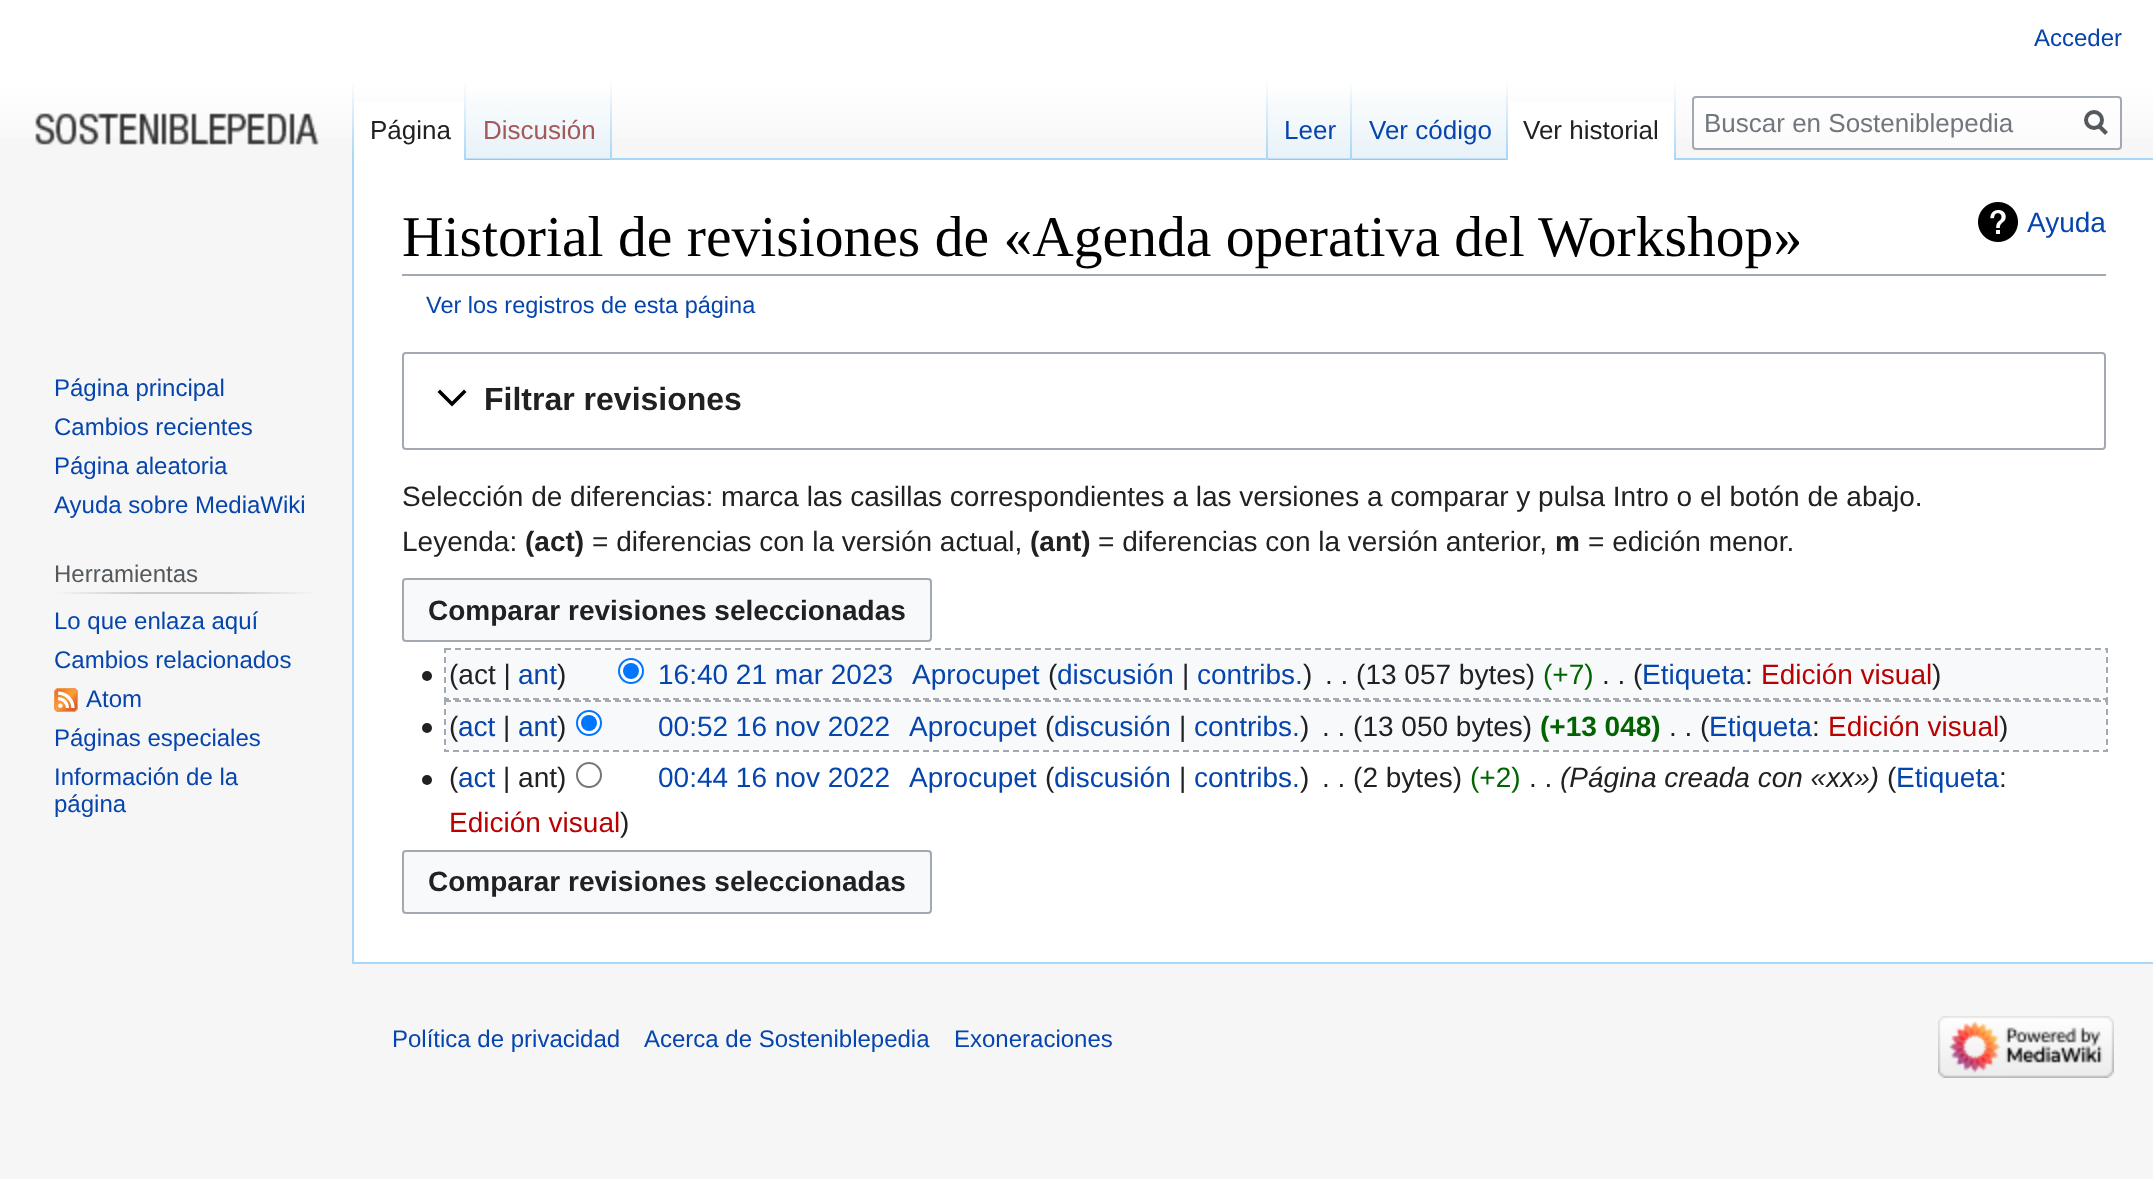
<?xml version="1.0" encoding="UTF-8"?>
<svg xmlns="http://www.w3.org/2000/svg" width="2153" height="1179">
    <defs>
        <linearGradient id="g1" gradientUnits="userSpaceOnUse" x1="1077" y1="0" x2="1077" y2="160"><stop offset="0.5" stop-color="#FFFFFF"/><stop offset="1" stop-color="#F6F6F6"/></linearGradient>
        <linearGradient id="g2" gradientUnits="userSpaceOnUse" x1="353" y1="80" x2="353" y2="160"><stop offset="0" stop-color="#A7D7F9" stop-opacity="0"/><stop offset="1" stop-color="#A7D7F9"/></linearGradient>
        <linearGradient id="g3" gradientUnits="userSpaceOnUse" x1="465" y1="80" x2="465" y2="160"><stop offset="0" stop-color="#FFFFFF"/><stop offset="1" stop-color="#A7D7F9"/></linearGradient>
        <linearGradient id="g4" gradientUnits="userSpaceOnUse" x1="539" y1="160" x2="539" y2="80"><stop offset="0" stop-color="#77C1F6"/><stop offset="0.03" stop-color="#E8F2F8"/><stop offset="1" stop-color="#FFFFFF"/></linearGradient>
        <linearGradient id="g5" gradientUnits="userSpaceOnUse" x1="611" y1="80" x2="611" y2="160"><stop offset="0" stop-color="#A7D7F9" stop-opacity="0"/><stop offset="1" stop-color="#A7D7F9"/></linearGradient>
        <linearGradient id="g6" gradientUnits="userSpaceOnUse" x1="1267" y1="80" x2="1267" y2="160"><stop offset="0" stop-color="#A7D7F9" stop-opacity="0"/><stop offset="1" stop-color="#A7D7F9"/></linearGradient>
        <linearGradient id="g7" gradientUnits="userSpaceOnUse" x1="1310" y1="160" x2="1310" y2="80"><stop offset="0" stop-color="#77C1F6"/><stop offset="0.03" stop-color="#E8F2F8"/><stop offset="1" stop-color="#FFFFFF"/></linearGradient>
        <linearGradient id="g8" gradientUnits="userSpaceOnUse" x1="1351" y1="80" x2="1351" y2="160"><stop offset="0" stop-color="#A7D7F9" stop-opacity="0"/><stop offset="1" stop-color="#A7D7F9"/></linearGradient>
        <linearGradient id="g9" gradientUnits="userSpaceOnUse" x1="1430" y1="160" x2="1430" y2="80"><stop offset="0" stop-color="#77C1F6"/><stop offset="0.03" stop-color="#E8F2F8"/><stop offset="1" stop-color="#FFFFFF"/></linearGradient>
        <linearGradient id="g10" gradientUnits="userSpaceOnUse" x1="1507" y1="80" x2="1507" y2="160"><stop offset="0" stop-color="#A7D7F9" stop-opacity="0"/><stop offset="1" stop-color="#A7D7F9"/></linearGradient>
        <linearGradient id="g11" gradientUnits="userSpaceOnUse" x1="1675" y1="80" x2="1675" y2="160"><stop offset="0" stop-color="#FFFFFF"/><stop offset="1" stop-color="#A7D7F9"/></linearGradient>
        <linearGradient id="g12" gradientUnits="userSpaceOnUse" x1="54" y1="593" x2="316" y2="593"><stop offset="0" stop-color="#F6F6F6"/><stop offset="0.33" stop-color="#C8CCD1"/><stop offset="0.66" stop-color="#C8CCD1"/><stop offset="1" stop-color="#F6F6F6"/></linearGradient>
    </defs>
    <rect width="100%" height="100%" fill="#F6F6F6"/>
    <rect x="0" y="0" width="2153" height="138" fill="url(#g1)"/>
    <text x="2034" y="46" font-family="Liberation Sans" font-size="24" fill="#0645AD">Acceder</text>
    <rect x="352" y="962" width="1801" height="2" fill="#A7D7F9"/>
    <rect x="352" y="158" width="2" height="806" fill="#A7D7F9"/>
    <rect x="352" y="80" width="2" height="80" fill="url(#g2)"/>
    <rect x="354" y="102" width="110" height="58" fill="#FFFFFF"/>
    <rect x="464" y="80" width="2" height="80" fill="url(#g3)"/>
    <text x="370" y="139" font-family="Liberation Sans" font-size="26" fill="#202122">Página</text>
    <rect x="466" y="92" width="146" height="68" fill="url(#g4)"/>
    <rect x="610" y="80" width="2" height="80" fill="url(#g5)"/>
    <text x="483" y="139" font-family="Liberation Sans" font-size="26" fill="#A55858">Discusión</text>
    <rect x="612" y="158" width="1541" height="2" fill="#A7D7F9"/>
    <rect x="1266" y="80" width="2" height="80" fill="url(#g6)"/>
    <rect x="1268" y="92" width="84" height="68" fill="url(#g7)"/>
    <rect x="1350" y="80" width="2" height="80" fill="url(#g8)"/>
    <text x="1284" y="139" font-family="Liberation Sans" font-size="26" fill="#0645AD">Leer</text>
    <rect x="1352" y="92" width="156" height="68" fill="url(#g9)"/>
    <rect x="1506" y="80" width="2" height="80" fill="url(#g10)"/>
    <text x="1369" y="139" font-family="Liberation Sans" font-size="26" fill="#0645AD">Ver código</text>
    <rect x="1508" y="102" width="166" height="58" fill="#FFFFFF"/>
    <rect x="1674" y="80" width="2" height="80" fill="url(#g11)"/>
    <text x="1523" y="139" font-family="Liberation Sans" font-size="26" fill="#202122">Ver historial</text>
    <rect x="1693" y="97" width="428" height="52" rx="3" fill="#FFFFFF" fill-opacity="0.5" stroke="#A2A9B1" stroke-width="2"/>
    <text x="1704" y="132" font-family="Liberation Sans" font-size="26" fill="#72777D">Buscar en Sosteniblepedia</text>
    <path d="M 2106.5 133.5 L 2098.5 125.5" fill="none" stroke="#54595D" stroke-width="4"/>
    <circle cx="2094" cy="120" r="8" fill="none" stroke="#54595D" stroke-width="4"/>
    <image x="35" y="113" width="284" height="32" href="img_01.png"/>
    <text font-family="Liberation Sans" font-size="24" fill="#0645AD">
        <tspan x="54" y="396">Página principal</tspan>
        <tspan x="54" y="435">Cambios recientes</tspan>
        <tspan x="54" y="474">Página aleatoria</tspan>
        <tspan x="54" y="513">Ayuda sobre MediaWiki</tspan>
    </text>
    <rect x="54" y="592" width="262" height="2" fill="url(#g12)"/>
    <text x="54" y="582" font-family="Liberation Sans" font-size="24" fill="#54595D">Herramientas</text>
    <text font-family="Liberation Sans" font-size="24" fill="#0645AD">
        <tspan x="54" y="629">Lo que enlaza aquí</tspan>
        <tspan x="54" y="668">Cambios relacionados</tspan>
    </text>
    <image x="54" y="688" width="24" height="24" href="img_02.png"/>
    <text x="86" y="707" font-family="Liberation Sans" font-size="24" fill="#0645AD">Atom</text>
    <text font-family="Liberation Sans" font-size="24" fill="#0645AD">
        <tspan x="54" y="746">Páginas especiales</tspan>
        <tspan x="54" y="785">Información de la</tspan>
        <tspan x="54" y="812">página</tspan>
    </text>
    <rect x="354" y="160" width="1799" height="802" fill="#FFFFFF"/>
    <rect x="402" y="274" width="1704" height="2" fill="#A2A9B1"/>
    <text x="402" y="256" font-family="Liberation Serif" font-size="57.6" fill="#000000">Historial de revisiones de «Agenda operativa del Workshop»</text>
    <image x="1978" y="202" width="40" height="40" href="img_03.png"/>
    <text x="2027" y="232" font-family="Liberation Sans" font-size="28" fill="#0645AD">Ayuda</text>
    <text x="426" y="313" font-family="Liberation Sans" font-size="23.5" fill="#0645AD">Ver los registros de esta página</text>
    <rect x="403" y="353" width="1702" height="96" rx="3" fill="none" stroke="#A2A9B1" stroke-width="2"/>
    <path d="M 464 389.5 L 452 401.5 L 440 389.5 L 437.5 392 L 452 406.5 L 466.5 392 Z" fill="#000000"/>
    <text x="484" y="410" font-family="Liberation Sans" font-size="32" font-weight="700" fill="#202122">Filtrar revisiones</text>
    <text font-family="Liberation Sans" font-size="28" fill="#202122">
        <tspan x="402" y="506">Selección de diferencias: marca las casillas correspondientes a las versiones a comparar y pulsa Intro o el botón de abajo.</tspan>
        <tspan x="402" y="551">Leyenda:</tspan>
    </text>
    <text x="525" y="551" font-family="Liberation Sans" font-size="28" font-weight="700" fill="#202122">(act)</text>
    <text x="592" y="551" font-family="Liberation Sans" font-size="28" fill="#202122">= diferencias con la versión actual,</text>
    <text x="1030" y="551" font-family="Liberation Sans" font-size="28" font-weight="700" fill="#202122">(ant)</text>
    <text x="1098" y="551" font-family="Liberation Sans" font-size="28" fill="#202122">= diferencias con la versión anterior,</text>
    <text x="1555" y="551" font-family="Liberation Sans" font-size="28" font-weight="700" fill="#202122">m</text>
    <text x="1588" y="551" font-family="Liberation Sans" font-size="28" fill="#202122">= edición menor.</text>
    <rect x="403" y="579" width="528" height="62" rx="3" fill="#F8F9FA" stroke="#A2A9B1" stroke-width="2"/>
    <text x="428" y="620" font-family="Liberation Sans" font-size="28" font-weight="700" fill="#202122">Comparar revisiones seleccionadas</text>
    <rect x="446" y="650" width="1660" height="48" fill="#F8F9FA"/>
    <image x="422" y="671" width="10" height="10" href="img_04.png"/>
    <text x="449" y="684" font-family="Liberation Sans" font-size="28" fill="#202122">(act |</text>
    <text x="518" y="684" font-family="Liberation Sans" font-size="28" fill="#0645AD">ant</text>
    <text x="557" y="684" font-family="Liberation Sans" font-size="28" fill="#202122">)</text>
    <circle cx="631" cy="671" r="12" fill="#FFFFFF" stroke="#0075FF" stroke-width="2"/>
    <circle cx="631" cy="671" r="8" fill="#0075FF"/>
    <text x="658" y="684" font-family="Liberation Sans" font-size="28" fill="#0645AD">16:40 21 mar 2023</text>
    <text x="912" y="684" font-family="Liberation Sans" font-size="28" fill="#0645AD">Aprocupet</text>
    <text x="1048" y="684" font-family="Liberation Sans" font-size="28" fill="#202122">(</text>
    <text x="1057" y="684" font-family="Liberation Sans" font-size="28" fill="#0645AD">discusión</text>
    <text x="1182" y="684" font-family="Liberation Sans" font-size="28" fill="#202122">|</text>
    <text x="1197" y="684" font-family="Liberation Sans" font-size="28" fill="#0645AD">contribs.</text>
    <text x="1303" y="684" font-family="Liberation Sans" font-size="28" fill="#202122">)</text>
    <text x="1325" y="684" font-family="Liberation Sans" font-size="28" fill="#202122">. . (13 057 bytes)</text>
    <text x="1543" y="684" font-family="Liberation Sans" font-size="28" fill="#006400">(+7)</text>
    <text x="1602" y="684" font-family="Liberation Sans" font-size="28" fill="#202122">. . (</text>
    <text x="1642" y="684" font-family="Liberation Sans" font-size="28" fill="#0645AD">Etiqueta</text>
    <text x="1745" y="684" font-family="Liberation Sans" font-size="28" fill="#202122">:</text>
    <text x="1761" y="684" font-family="Liberation Sans" font-size="28" fill="#BA0000">Edición visual</text>
    <text x="1932" y="684" font-family="Liberation Sans" font-size="28" fill="#202122">)</text>
    <path d="M 445 649 H 2107 V 699 H 445 Z" fill="none" stroke="#A2A9B1" stroke-width="2" stroke-dasharray="6 4"/>
    <rect x="446" y="702" width="1660" height="48" fill="#F8F9FA"/>
    <image x="422" y="723" width="10" height="10" href="img_04.png"/>
    <text x="449" y="736" font-family="Liberation Sans" font-size="28" fill="#202122">(</text>
    <text x="458" y="736" font-family="Liberation Sans" font-size="28" fill="#0645AD">act</text>
    <text x="503" y="736" font-family="Liberation Sans" font-size="28" fill="#202122">|</text>
    <text x="518" y="736" font-family="Liberation Sans" font-size="28" fill="#0645AD">ant</text>
    <text x="557" y="736" font-family="Liberation Sans" font-size="28" fill="#202122">)</text>
    <circle cx="589" cy="723" r="12" fill="#FFFFFF" stroke="#0075FF" stroke-width="2"/>
    <circle cx="589" cy="723" r="8" fill="#0075FF"/>
    <text x="658" y="736" font-family="Liberation Sans" font-size="28" fill="#0645AD">00:52 16 nov 2022</text>
    <text x="909" y="736" font-family="Liberation Sans" font-size="28" fill="#0645AD">Aprocupet</text>
    <text x="1045" y="736" font-family="Liberation Sans" font-size="28" fill="#202122">(</text>
    <text x="1054" y="736" font-family="Liberation Sans" font-size="28" fill="#0645AD">discusión</text>
    <text x="1179" y="736" font-family="Liberation Sans" font-size="28" fill="#202122">|</text>
    <text x="1194" y="736" font-family="Liberation Sans" font-size="28" fill="#0645AD">contribs.</text>
    <text x="1300" y="736" font-family="Liberation Sans" font-size="28" fill="#202122">)</text>
    <text x="1322" y="736" font-family="Liberation Sans" font-size="28" fill="#202122">. . (13 050 bytes)</text>
    <text x="1540" y="736" font-family="Liberation Sans" font-size="28" font-weight="700" fill="#006400">(+13 048)</text>
    <text x="1669" y="736" font-family="Liberation Sans" font-size="28" fill="#202122">. . (</text>
    <text x="1709" y="736" font-family="Liberation Sans" font-size="28" fill="#0645AD">Etiqueta</text>
    <text x="1812" y="736" font-family="Liberation Sans" font-size="28" fill="#202122">:</text>
    <text x="1828" y="736" font-family="Liberation Sans" font-size="28" fill="#BA0000">Edición visual</text>
    <text x="1999" y="736" font-family="Liberation Sans" font-size="28" fill="#202122">)</text>
    <path d="M 445 701 H 2107 V 751 H 445 Z" fill="none" stroke="#A2A9B1" stroke-width="2" stroke-dasharray="6 4"/>
    <image x="422" y="775" width="10" height="10" href="img_04.png"/>
    <text x="449" y="787" font-family="Liberation Sans" font-size="28" fill="#202122">(</text>
    <text x="458" y="787" font-family="Liberation Sans" font-size="28" fill="#0645AD">act</text>
    <text x="503" y="787" font-family="Liberation Sans" font-size="28" fill="#202122">| ant)</text>
    <circle cx="589" cy="775" r="12" fill="none" stroke="#767676" stroke-width="2"/>
    <text x="658" y="787" font-family="Liberation Sans" font-size="28" fill="#0645AD">00:44 16 nov 2022</text>
    <text x="909" y="787" font-family="Liberation Sans" font-size="28" fill="#0645AD">Aprocupet</text>
    <text x="1045" y="787" font-family="Liberation Sans" font-size="28" fill="#202122">(</text>
    <text x="1054" y="787" font-family="Liberation Sans" font-size="28" fill="#0645AD">discusión</text>
    <text x="1179" y="787" font-family="Liberation Sans" font-size="28" fill="#202122">|</text>
    <text x="1194" y="787" font-family="Liberation Sans" font-size="28" fill="#0645AD">contribs.</text>
    <text x="1300" y="787" font-family="Liberation Sans" font-size="28" fill="#202122">)</text>
    <text x="1322" y="787" font-family="Liberation Sans" font-size="28" fill="#202122">. . (2 bytes)</text>
    <text x="1470" y="787" font-family="Liberation Sans" font-size="28" fill="#006400">(+2)</text>
    <text x="1529" y="787" font-family="Liberation Sans" font-size="28" fill="#202122">. .</text>
    <text x="1560" y="787" font-family="Liberation Sans" font-size="28" font-style="italic" fill="#202122">(Página creada con «xx»)</text>
    <text x="1887" y="787" font-family="Liberation Sans" font-size="28" fill="#202122">(</text>
    <text x="1896" y="787" font-family="Liberation Sans" font-size="28" fill="#0645AD">Etiqueta</text>
    <text x="1999" y="787" font-family="Liberation Sans" font-size="28" fill="#202122">:</text>
    <text x="449" y="832" font-family="Liberation Sans" font-size="28" fill="#BA0000">Edición visual</text>
    <text x="620" y="832" font-family="Liberation Sans" font-size="28" fill="#202122">)</text>
    <rect x="403" y="851" width="528" height="62" rx="3" fill="#F8F9FA" stroke="#A2A9B1" stroke-width="2"/>
    <text x="428" y="891" font-family="Liberation Sans" font-size="28" font-weight="700" fill="#202122">Comparar revisiones seleccionadas</text>
    <text x="392" y="1047" font-family="Liberation Sans" font-size="24" fill="#0645AD">Política de privacidad</text>
    <text x="644" y="1047" font-family="Liberation Sans" font-size="24" fill="#0645AD">Acerca de Sosteniblepedia</text>
    <text x="954" y="1047" font-family="Liberation Sans" font-size="24" fill="#0645AD">Exoneraciones</text>
    <image x="1938" y="1016" width="176" height="62" href="img_05.png"/>
</svg>
